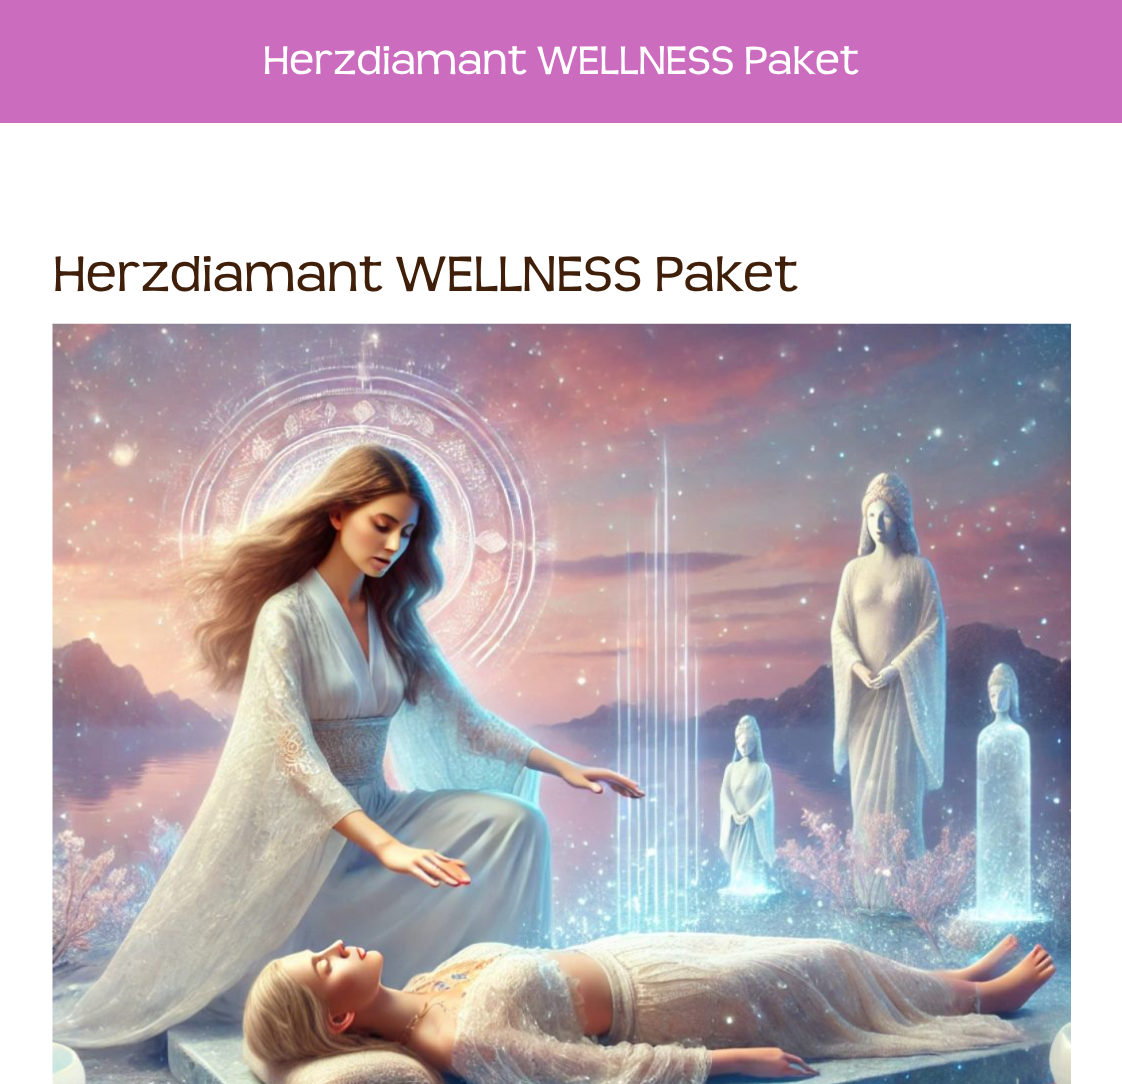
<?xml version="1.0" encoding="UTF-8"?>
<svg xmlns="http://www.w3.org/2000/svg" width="1122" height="1084">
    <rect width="100%" height="100%" fill="#FFFFFF"/>
    <rect x="0" y="0" width="1122" height="123" fill="#CB6CBF"/>
    <text x="263" y="74" font-family="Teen" font-size="42" fill="#FFFFFF">Herzdiamant WELLNESS Paket</text>
    <text x="53" y="291" font-family="Teen" font-size="52.5" fill="#401F0A">Herzdiamant WELLNESS Paket</text>
    <image x="52" y="323" width="1019" height="761" href="img_01.png"/>
</svg>
